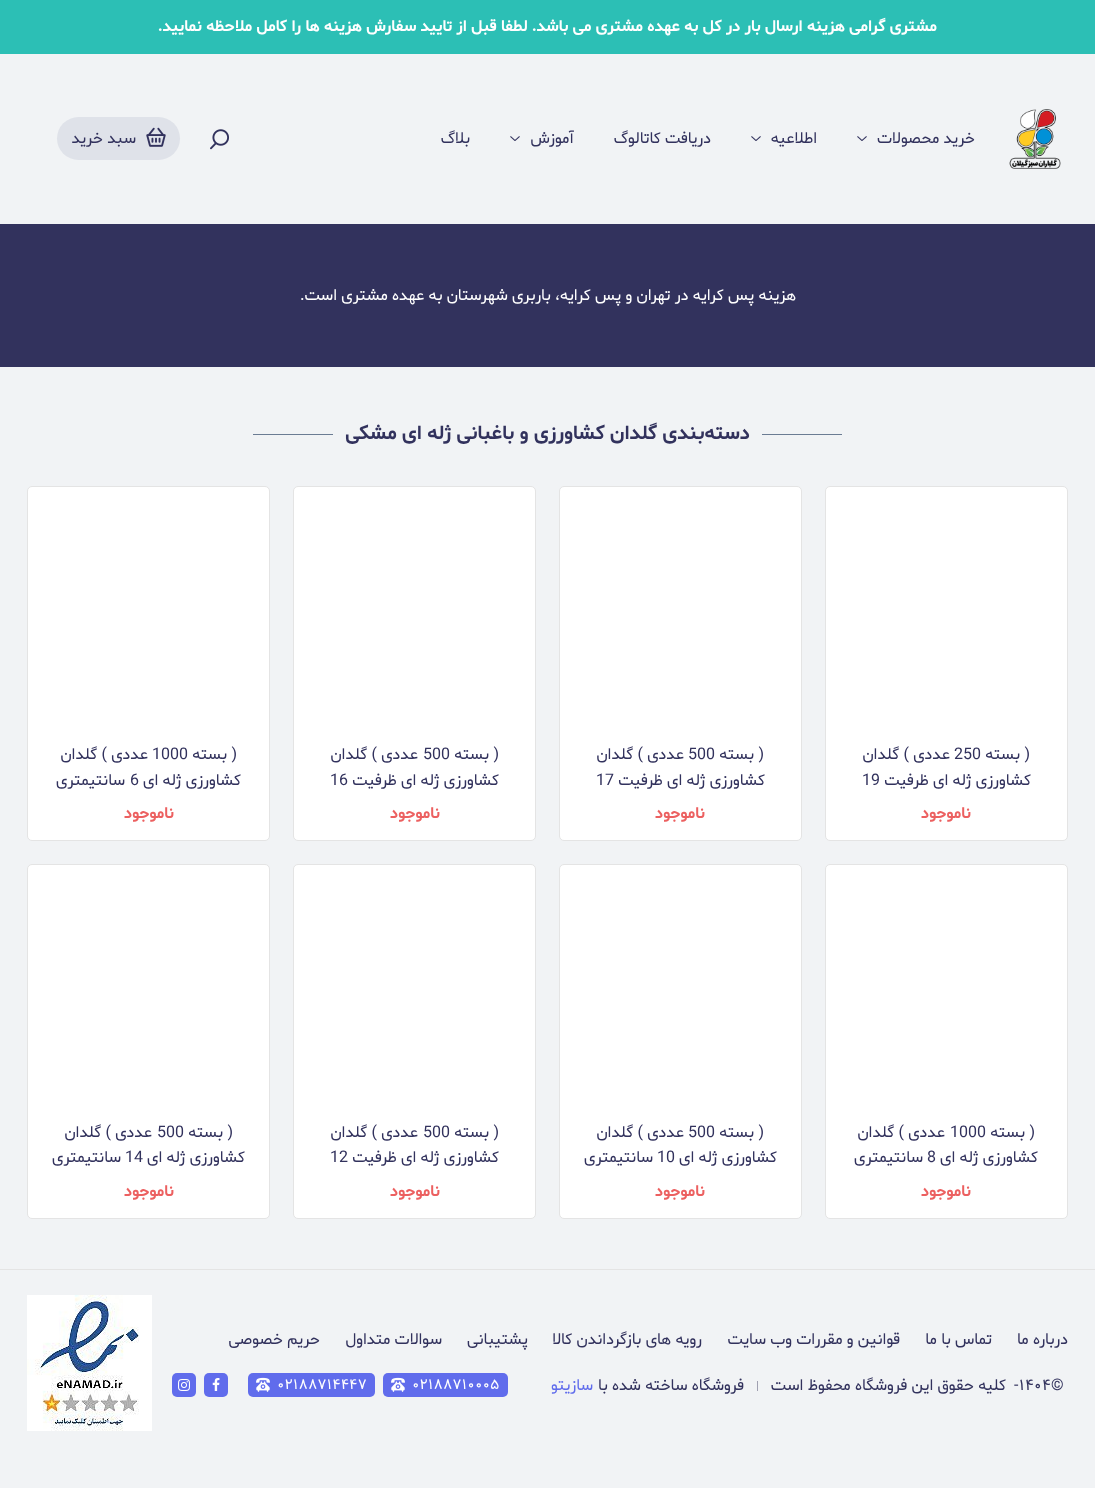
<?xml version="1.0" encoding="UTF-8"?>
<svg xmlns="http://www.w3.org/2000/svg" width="1095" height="1488">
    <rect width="100%" height="100%" fill="#F1F3F5"/>
    <rect x="0" y="0" width="1095" height="54" fill="#2CBFB5"/>
    <text x="937" y="31" font-family="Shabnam" font-size="16" font-weight="700" direction="rtl" fill="#FFFFFF">مشتری گرامی هزینه ارسال بار در کل به عهده مشتری می باشد. لطفا قبل از تایید سفارش هزینه ها را کامل ملاحظه نمایید.</text>
    <image x="1009" y="109" width="52" height="60" href="img_01.png"/>
    <text x="975" y="143" font-family="Shabnam" font-size="16" direction="rtl" fill="#32325D">خرید محصولات</text>
    <image x="857" y="136" width="10" height="5" href="img_02.png"/>
    <text x="817" y="143" font-family="Shabnam" font-size="16" direction="rtl" fill="#32325D">اطلاعیه</text>
    <image x="751" y="136" width="10" height="5" href="img_02.png"/>
    <text x="711" y="143" font-family="Shabnam" font-size="16" direction="rtl" fill="#32325D">دریافت کاتالوگ</text>
    <text x="574" y="143" font-family="Shabnam" font-size="16" direction="rtl" fill="#32325D">آموزش</text>
    <image x="510" y="136" width="10" height="5" href="img_02.png"/>
    <text x="470" y="143" font-family="Shabnam" font-size="16" direction="rtl" fill="#32325D">بلاگ</text>
    <image x="210" y="129" width="19" height="21" href="img_03.png"/>
    <rect x="57" y="117" width="123" height="43" rx="21.5" fill="#DFE2E9"/>
    <image x="146" y="127" width="20" height="20" href="img_04.png"/>
    <text x="136" y="143" font-family="Shabnam" font-size="16" direction="rtl" fill="#32325D">سبد خرید</text>
    <rect x="0" y="224" width="1095" height="143" fill="#32325D"/>
    <text x="796" y="300" font-family="Shabnam" font-size="16" direction="rtl" fill="#FFFFFF">هزینه پس کرایه در تهران و پس کرایه، باربری شهرستان به عهده مشتری است.</text>
    <rect x="762" y="434" width="80" height="1" fill="#6B7C93"/>
    <text x="750" y="439" font-family="Shabnam" font-size="20" font-weight="700" direction="rtl" fill="#32325D">دسته‌بندی گلدان کشاورزی و باغبانی ژله ای مشکی</text>
    <rect x="253" y="434" width="80" height="1" fill="#6B7C93"/>
    <rect x="825.5" y="486.5" width="242" height="354" rx="4.5" fill="#FFFFFF" stroke="#E4E4E4"/>
    <text x="1030" y="759" font-family="Shabnam" font-size="16" direction="rtl" fill="#32325D">( بسته</text>
    <text x="954" y="759" font-family="Shabnam" font-size="16" fill="#32325D">250</text>
    <text x="950" y="759" font-family="Shabnam" font-size="16" direction="rtl" fill="#32325D">عددی ) گلدان</text>
    <text x="1031" y="785" font-family="Shabnam" font-size="16" direction="rtl" fill="#32325D">کشاورزی ژله ای ظرفیت</text>
    <text x="862" y="785" font-family="Shabnam" font-size="16" fill="#32325D">19</text>
    <text x="971" y="818" font-family="Shabnam" font-size="16" font-weight="700" direction="rtl" fill="#EC6060">ناموجود</text>
    <rect x="559.5" y="486.5" width="242" height="354" rx="4.5" fill="#FFFFFF" stroke="#E4E4E4"/>
    <text x="764" y="759" font-family="Shabnam" font-size="16" direction="rtl" fill="#32325D">( بسته</text>
    <text x="688" y="759" font-family="Shabnam" font-size="16" fill="#32325D">500</text>
    <text x="684" y="759" font-family="Shabnam" font-size="16" direction="rtl" fill="#32325D">عددی ) گلدان</text>
    <text x="765" y="785" font-family="Shabnam" font-size="16" direction="rtl" fill="#32325D">کشاورزی ژله ای ظرفیت</text>
    <text x="596" y="785" font-family="Shabnam" font-size="16" fill="#32325D">17</text>
    <text x="705" y="818" font-family="Shabnam" font-size="16" font-weight="700" direction="rtl" fill="#EC6060">ناموجود</text>
    <rect x="293.5" y="486.5" width="242" height="354" rx="4.5" fill="#FFFFFF" stroke="#E4E4E4"/>
    <text x="499" y="759" font-family="Shabnam" font-size="16" direction="rtl" fill="#32325D">( بسته</text>
    <text x="423" y="759" font-family="Shabnam" font-size="16" fill="#32325D">500</text>
    <text x="418" y="759" font-family="Shabnam" font-size="16" direction="rtl" fill="#32325D">عددی ) گلدان</text>
    <text x="499" y="785" font-family="Shabnam" font-size="16" direction="rtl" fill="#32325D">کشاورزی ژله ای ظرفیت</text>
    <text x="330" y="785" font-family="Shabnam" font-size="16" fill="#32325D">16</text>
    <text x="440" y="818" font-family="Shabnam" font-size="16" font-weight="700" direction="rtl" fill="#EC6060">ناموجود</text>
    <rect x="27.5" y="486.5" width="242" height="354" rx="4.5" fill="#FFFFFF" stroke="#E4E4E4"/>
    <text x="237" y="759" font-family="Shabnam" font-size="16" direction="rtl" fill="#32325D">( بسته</text>
    <text x="152" y="759" font-family="Shabnam" font-size="16" fill="#32325D">1000</text>
    <text x="148" y="759" font-family="Shabnam" font-size="16" direction="rtl" fill="#32325D">عددی ) گلدان</text>
    <text x="241" y="785" font-family="Shabnam" font-size="16" direction="rtl" fill="#32325D">کشاورزی ژله ای</text>
    <text x="130" y="785" font-family="Shabnam" font-size="16" fill="#32325D">6</text>
    <text x="125" y="785" font-family="Shabnam" font-size="16" direction="rtl" fill="#32325D">سانتیمتری</text>
    <text x="174" y="818" font-family="Shabnam" font-size="16" font-weight="700" direction="rtl" fill="#EC6060">ناموجود</text>
    <rect x="825.5" y="864.5" width="242" height="354" rx="4.5" fill="#FFFFFF" stroke="#E4E4E4"/>
    <text x="1035" y="1137" font-family="Shabnam" font-size="16" direction="rtl" fill="#32325D">( بسته</text>
    <text x="950" y="1137" font-family="Shabnam" font-size="16" fill="#32325D">1000</text>
    <text x="945" y="1137" font-family="Shabnam" font-size="16" direction="rtl" fill="#32325D">عددی ) گلدان</text>
    <text x="1038" y="1162" font-family="Shabnam" font-size="16" direction="rtl" fill="#32325D">کشاورزی ژله ای</text>
    <text x="927" y="1162" font-family="Shabnam" font-size="16" fill="#32325D">8</text>
    <text x="923" y="1162" font-family="Shabnam" font-size="16" direction="rtl" fill="#32325D">سانتیمتری</text>
    <text x="971" y="1196" font-family="Shabnam" font-size="16" font-weight="700" direction="rtl" fill="#EC6060">ناموجود</text>
    <rect x="559.5" y="864.5" width="242" height="354" rx="4.5" fill="#FFFFFF" stroke="#E4E4E4"/>
    <text x="764" y="1137" font-family="Shabnam" font-size="16" direction="rtl" fill="#32325D">( بسته</text>
    <text x="688" y="1137" font-family="Shabnam" font-size="16" fill="#32325D">500</text>
    <text x="684" y="1137" font-family="Shabnam" font-size="16" direction="rtl" fill="#32325D">عددی ) گلدان</text>
    <text x="777" y="1162" font-family="Shabnam" font-size="16" direction="rtl" fill="#32325D">کشاورزی ژله ای</text>
    <text x="657" y="1162" font-family="Shabnam" font-size="16" fill="#32325D">10</text>
    <text x="653" y="1162" font-family="Shabnam" font-size="16" direction="rtl" fill="#32325D">سانتیمتری</text>
    <text x="705" y="1196" font-family="Shabnam" font-size="16" font-weight="700" direction="rtl" fill="#EC6060">ناموجود</text>
    <rect x="293.5" y="864.5" width="242" height="354" rx="4.5" fill="#FFFFFF" stroke="#E4E4E4"/>
    <text x="499" y="1137" font-family="Shabnam" font-size="16" direction="rtl" fill="#32325D">( بسته</text>
    <text x="423" y="1137" font-family="Shabnam" font-size="16" fill="#32325D">500</text>
    <text x="418" y="1137" font-family="Shabnam" font-size="16" direction="rtl" fill="#32325D">عددی ) گلدان</text>
    <text x="499" y="1162" font-family="Shabnam" font-size="16" direction="rtl" fill="#32325D">کشاورزی ژله ای ظرفیت</text>
    <text x="330" y="1162" font-family="Shabnam" font-size="16" fill="#32325D">12</text>
    <text x="440" y="1196" font-family="Shabnam" font-size="16" font-weight="700" direction="rtl" fill="#EC6060">ناموجود</text>
    <rect x="27.5" y="864.5" width="242" height="354" rx="4.5" fill="#FFFFFF" stroke="#E4E4E4"/>
    <text x="233" y="1137" font-family="Shabnam" font-size="16" direction="rtl" fill="#32325D">( بسته</text>
    <text x="157" y="1137" font-family="Shabnam" font-size="16" fill="#32325D">500</text>
    <text x="152" y="1137" font-family="Shabnam" font-size="16" direction="rtl" fill="#32325D">عددی ) گلدان</text>
    <text x="245" y="1162" font-family="Shabnam" font-size="16" direction="rtl" fill="#32325D">کشاورزی ژله ای</text>
    <text x="125" y="1162" font-family="Shabnam" font-size="16" fill="#32325D">14</text>
    <text x="121" y="1162" font-family="Shabnam" font-size="16" direction="rtl" fill="#32325D">سانتیمتری</text>
    <text x="174" y="1196" font-family="Shabnam" font-size="16" font-weight="700" direction="rtl" fill="#EC6060">ناموجود</text>
    <rect x="0" y="1269" width="1095" height="1" fill="#E4E4E4"/>
    <text x="1068" y="1344" font-family="Shabnam" font-size="16" direction="rtl" fill="#32325D">درباره ما</text>
    <text x="992" y="1344" font-family="Shabnam" font-size="16" direction="rtl" fill="#32325D">تماس با ما</text>
    <text x="900" y="1344" font-family="Shabnam" font-size="16" direction="rtl" fill="#32325D">قوانین و مقررات وب سایت</text>
    <text x="702" y="1344" font-family="Shabnam" font-size="16" direction="rtl" fill="#32325D">رویه های بازگرداندن کالا</text>
    <text x="528" y="1344" font-family="Shabnam" font-size="16" direction="rtl" fill="#32325D">پشتیبانی</text>
    <text x="442" y="1344" font-family="Shabnam" font-size="16" direction="rtl" fill="#32325D">سوالات متداول</text>
    <text x="320" y="1344" font-family="Shabnam" font-size="16" direction="rtl" fill="#32325D">حریم خصوصی</text>
    <text x="1051" y="1390" font-family="Shabnam" font-size="16" fill="#32325D">©</text>
    <text x="1019" y="1390" font-family="Shabnam" font-size="16" fill="#32325D">۱۴۰۴</text>
    <text x="1014" y="1390" font-family="Shabnam" font-size="16" fill="#32325D">-</text>
    <text x="1006" y="1390" font-family="Shabnam" font-size="16" direction="rtl" fill="#32325D">کلیه حقوق این فروشگاه محفوظ است</text>
    <rect x="757" y="1381" width="1" height="10" fill="#A0A0B1"/>
    <text x="744" y="1390" font-family="Shabnam" font-size="16" direction="rtl" fill="#32325D">فروشگاه ساخته شده با</text>
    <text x="593" y="1390" font-family="Shabnam" font-size="16" direction="rtl" fill="#606CEC">سازیتو</text>
    <rect x="383" y="1373" width="125" height="24" rx="5" fill="#606CEC"/>
    <text x="412" y="1389" font-family="Shabnam" font-size="15" fill="#FFFFFF">۰۲۱۸۸۷۱۰۰۰۵</text>
    <image x="391" y="1377" width="14" height="15" href="img_05.png"/>
    <rect x="248" y="1373" width="127" height="24" rx="5" fill="#606CEC"/>
    <text x="277" y="1389" font-family="Shabnam" font-size="15" fill="#FFFFFF">۰۲۱۸۸۷۱۴۴۴۷</text>
    <image x="256" y="1377" width="14" height="15" href="img_05.png"/>
    <rect x="204" y="1373" width="24" height="24" rx="5" fill="#606CEC"/>
    <image x="212" y="1378" width="8" height="13" href="img_06.png"/>
    <rect x="172" y="1373" width="24" height="24" rx="5" fill="#606CEC"/>
    <image x="178" y="1379" width="12" height="12" href="img_07.png"/>
    <image x="27" y="1295" width="125" height="136" href="img_08.png"/>
</svg>
